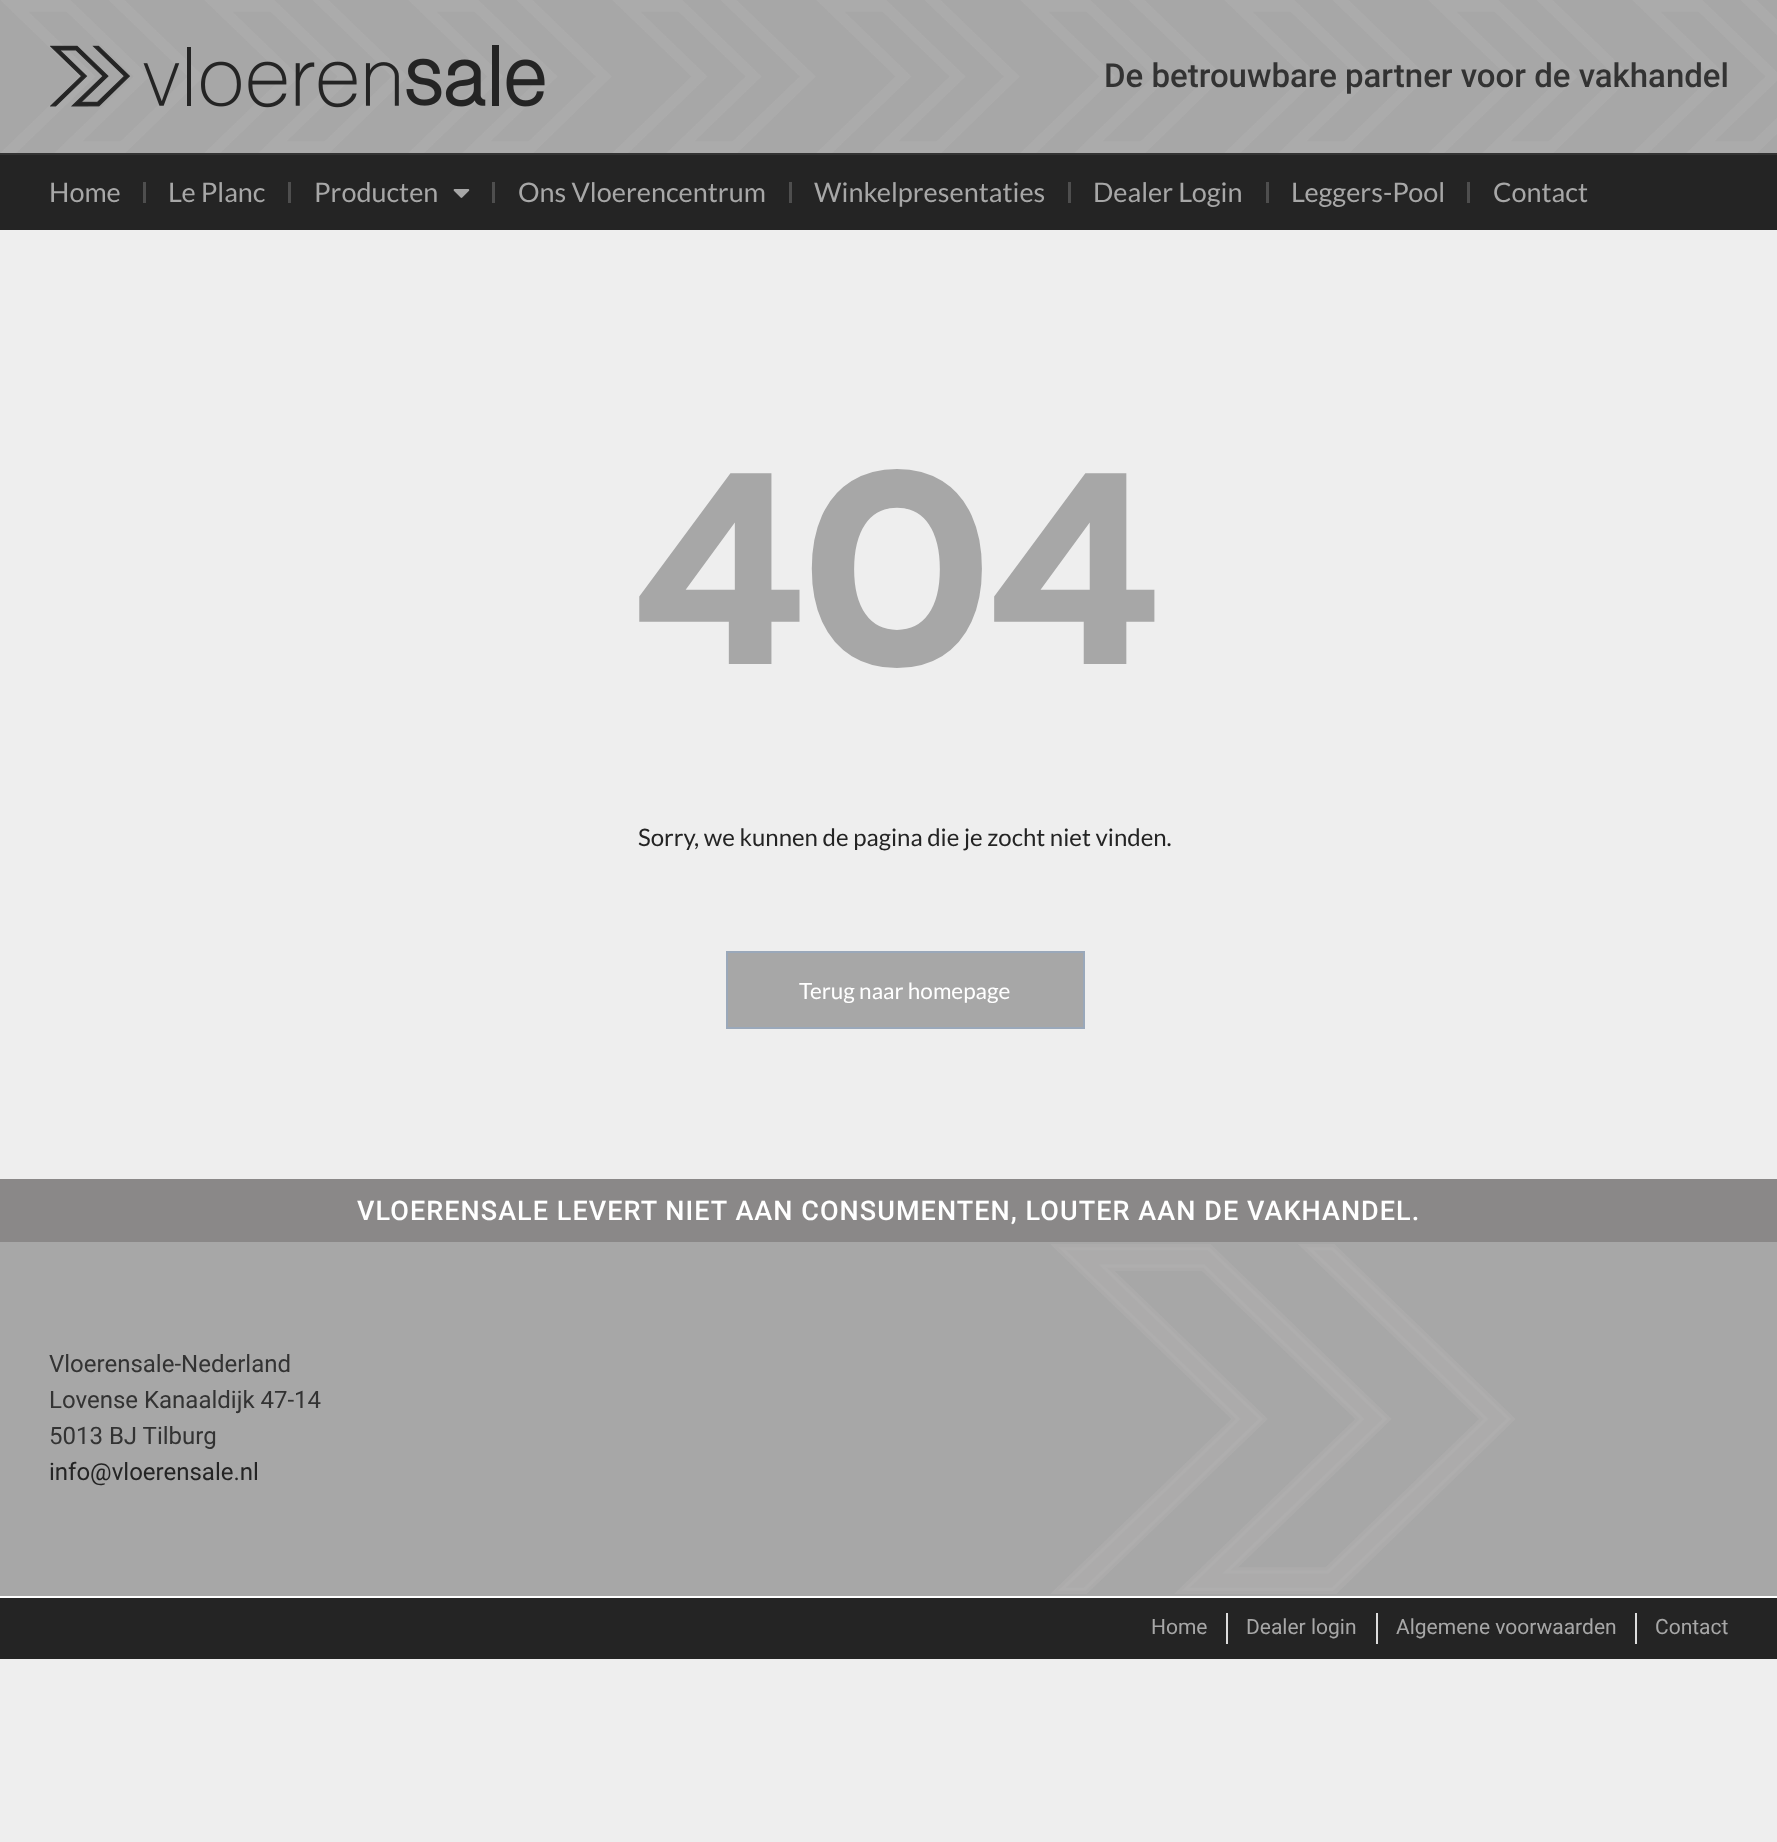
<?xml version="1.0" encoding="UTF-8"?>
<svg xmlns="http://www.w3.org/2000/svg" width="1777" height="1842">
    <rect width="100%" height="100%" fill="#EEEEEE"/>
    <rect x="0" y="0" width="1777" height="153" fill="#A7A7A7"/>
    <image x="1" y="0" width="1776" height="153" href="img_01.png"/>
    <image x="50" y="45" width="495" height="63" href="img_02.png"/>
    <text x="1104" y="87" font-family="Roboto" font-size="33" font-weight="500" fill="#333333">De betrouwbare partner voor de vakhandel</text>
    <rect x="0" y="155" width="1777" height="75" fill="#242424"/>
    <rect x="0" y="153" width="1777" height="2" fill="#333333"/>
    <text x="49" y="202" font-family="Lato" font-size="27" fill="#A7A7A7">Home</text>
    <rect x="143" y="182" width="3" height="21" fill="#4E4E4E"/>
    <text x="168" y="202" font-family="Lato" font-size="27" fill="#A7A7A7">Le Planc</text>
    <rect x="288" y="182" width="3" height="21" fill="#4E4E4E"/>
    <text x="314" y="202" font-family="Lato" font-size="27" fill="#A7A7A7">Producten</text>
    <image x="453" y="189" width="17" height="9" href="img_03.png"/>
    <rect x="492" y="182" width="3" height="21" fill="#4E4E4E"/>
    <text x="518" y="202" font-family="Lato" font-size="27" fill="#A7A7A7">Ons Vloerencentrum</text>
    <rect x="789" y="182" width="3" height="21" fill="#4E4E4E"/>
    <text x="814" y="202" font-family="Lato" font-size="27" fill="#A7A7A7">Winkelpresentaties</text>
    <rect x="1068" y="182" width="3" height="21" fill="#4E4E4E"/>
    <text x="1093" y="202" font-family="Lato" font-size="27" fill="#A7A7A7">Dealer Login</text>
    <rect x="1266" y="182" width="3" height="21" fill="#4E4E4E"/>
    <text x="1291" y="202" font-family="Lato" font-size="27" fill="#A7A7A7">Leggers-Pool</text>
    <rect x="1467" y="182" width="3" height="21" fill="#4E4E4E"/>
    <text x="1493" y="202" font-family="Lato" font-size="27" fill="#A7A7A7">Contact</text>
    <text x="636" y="664" font-family="Prompt" font-size="273" font-weight="600" fill="#A7A7A7">404</text>
    <text x="638" y="846" font-family="Lato" font-size="24" fill="#242424">Sorry, we kunnen de pagina die je zocht niet vinden.</text>
    <rect x="727" y="952" width="357" height="76" fill="#A7A7A7" stroke="#9AA8BA" stroke-width="2"/>
    <text x="799" y="999" font-family="Lato" font-size="22.5" fill="#FFFFFF">Terug naar homepage</text>
    <rect x="0" y="1179" width="1777" height="63" fill="#8A8888"/>
    <text x="357" y="1220" font-family="Roboto" font-size="27" font-weight="500" letter-spacing="1.05" fill="#FFFFFF">VLOERENSALE LEVERT NIET AAN CONSUMENTEN, LOUTER AAN DE VAKHANDEL.</text>
    <rect x="0" y="1242" width="1777" height="354" fill="#A7A7A7"/>
    <text font-family="Roboto" font-size="24" fill="#333333">
        <tspan x="49" y="1372">Vloerensale-Nederland</tspan>
        <tspan x="49" y="1408">Lovense Kanaaldijk 47-14</tspan>
        <tspan x="49" y="1444">5013 BJ Tilburg</tspan>
    </text>
    <text x="49" y="1480" font-family="Roboto" font-size="24" fill="#242424">info@vloerensale.nl</text>
    <image x="1051" y="1244" width="464" height="350" href="img_04.png"/>
    <rect x="0" y="1598" width="1777" height="61" fill="#242424"/>
    <rect x="0" y="1596" width="1777" height="2" fill="#FFFFFF"/>
    <text x="1151" y="1634" font-family="Roboto" font-size="21" fill="#A7A7A7">Home</text>
    <rect x="1226" y="1613" width="2" height="31" fill="#DDDDDD"/>
    <text x="1246" y="1634" font-family="Roboto" font-size="21" fill="#A7A7A7">Dealer login</text>
    <rect x="1376" y="1613" width="2" height="31" fill="#DDDDDD"/>
    <text x="1396" y="1634" font-family="Roboto" font-size="21" fill="#A7A7A7">Algemene voorwaarden</text>
    <rect x="1635" y="1613" width="2" height="31" fill="#DDDDDD"/>
    <text x="1655" y="1634" font-family="Roboto" font-size="21" fill="#A7A7A7">Contact</text>
</svg>
